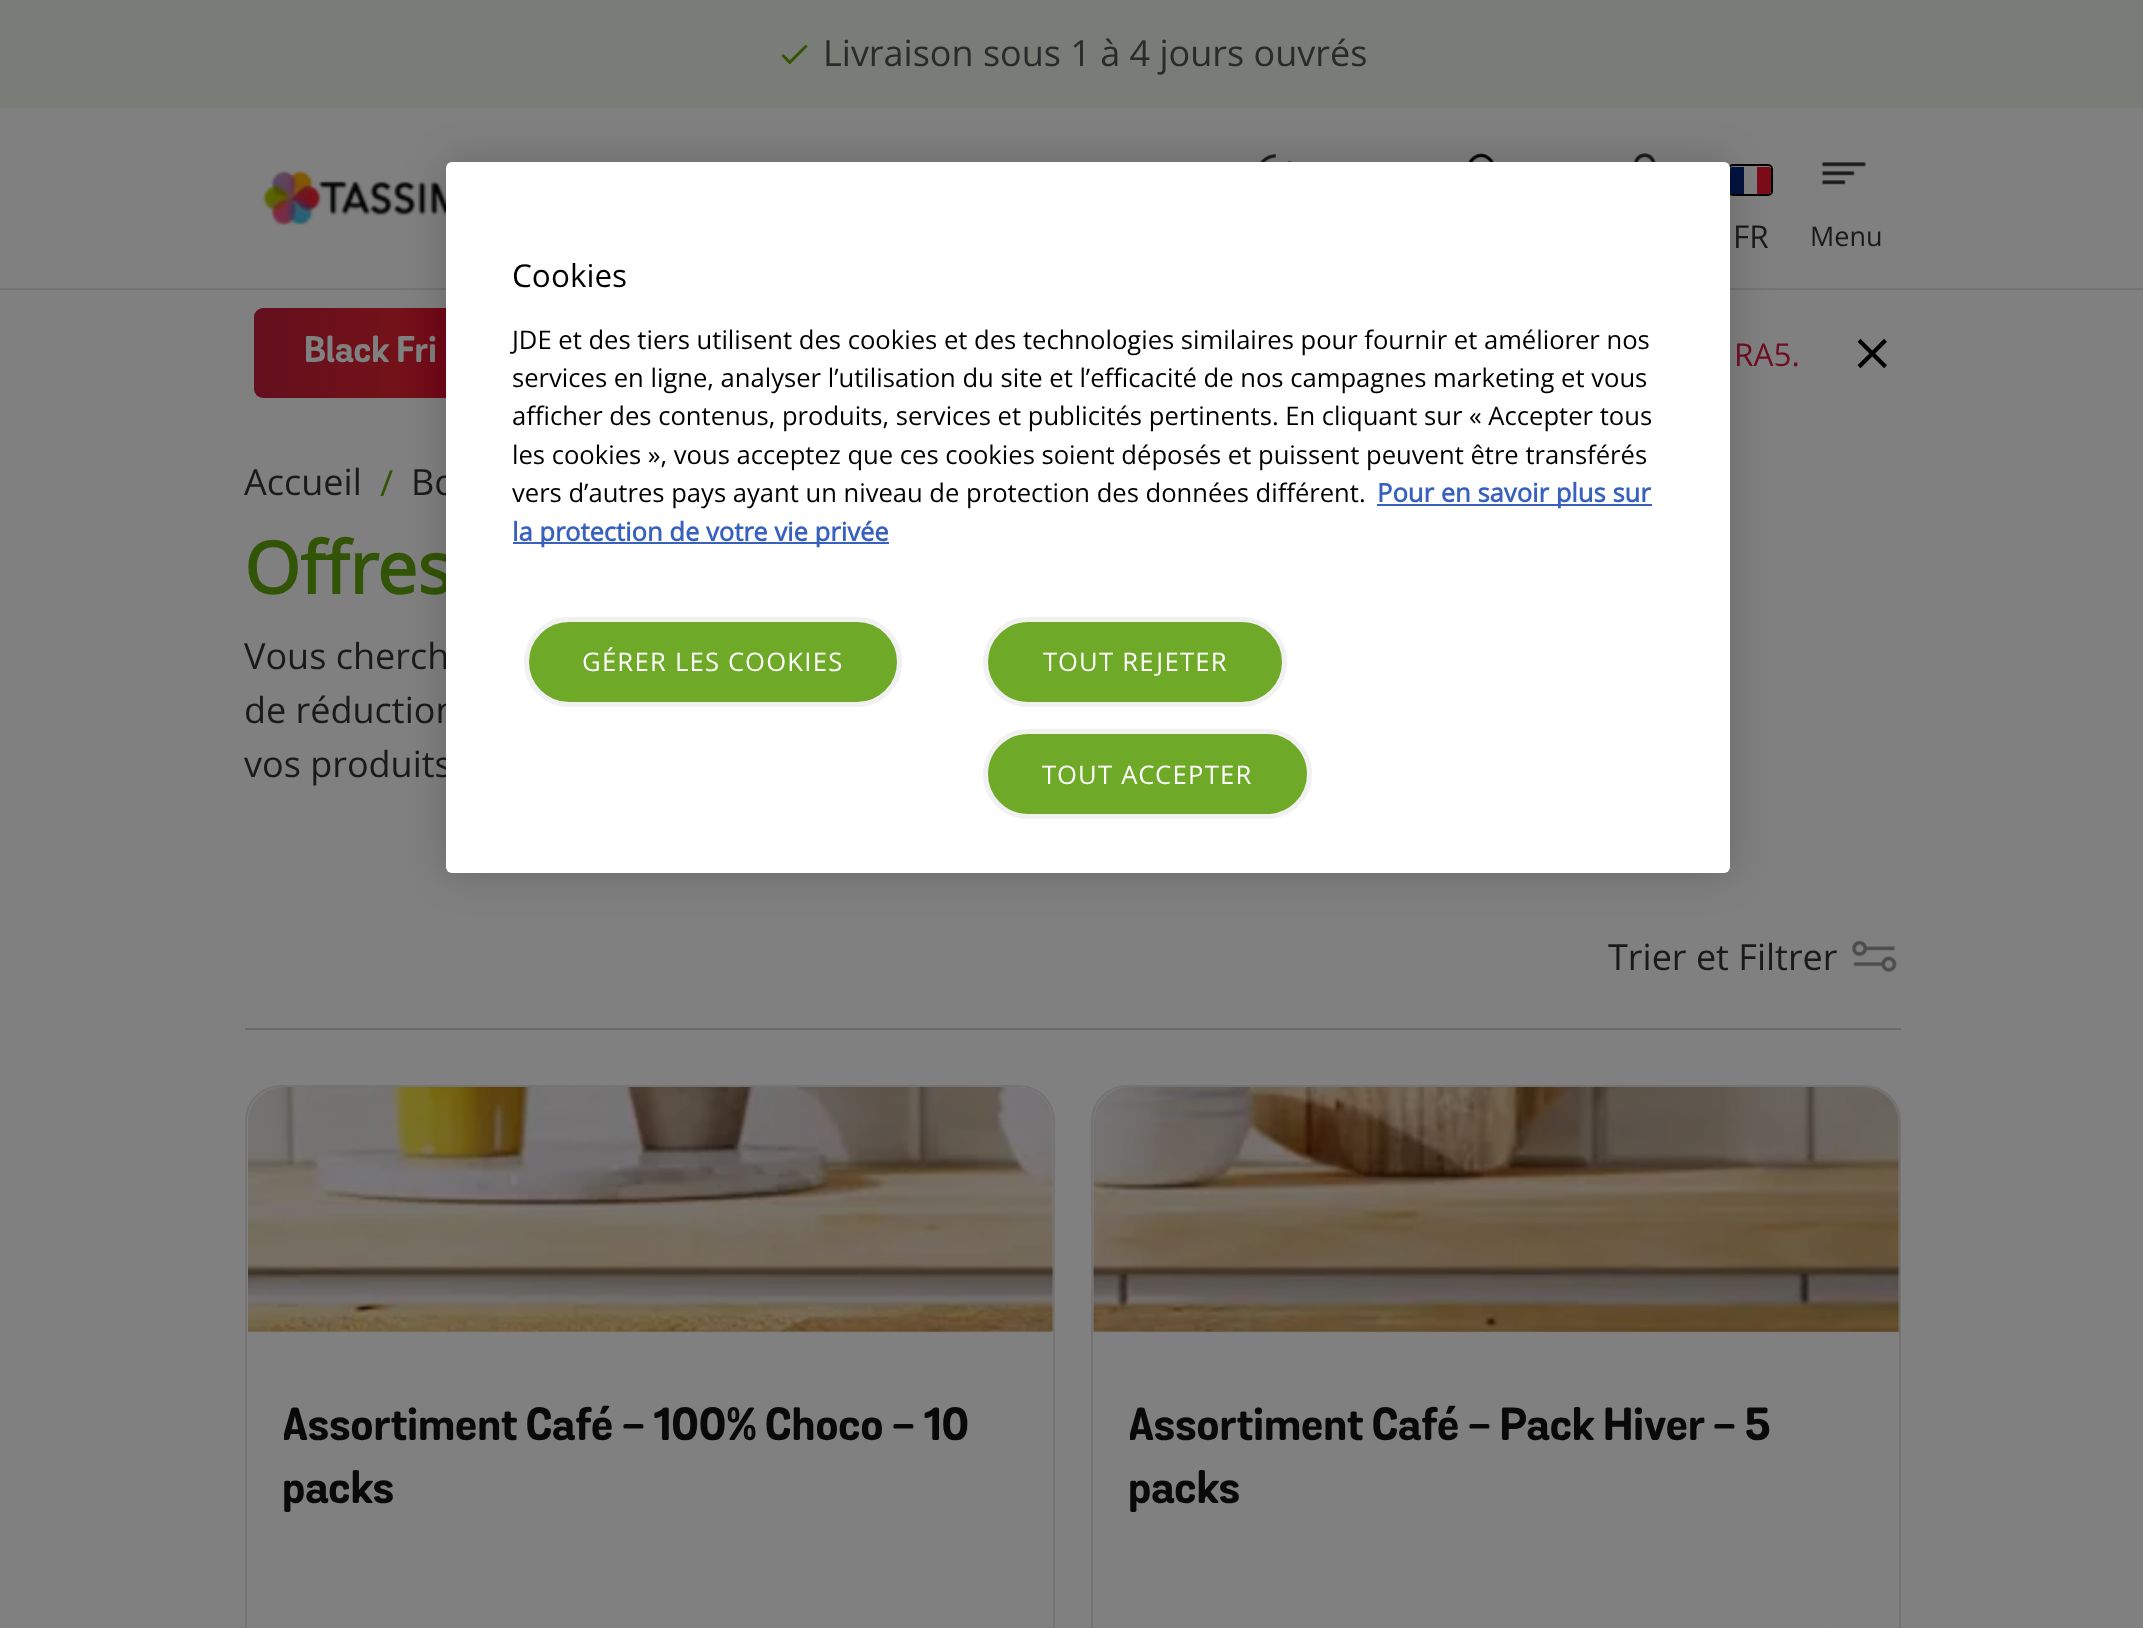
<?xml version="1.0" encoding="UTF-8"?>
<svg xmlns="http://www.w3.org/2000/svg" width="2143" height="1628">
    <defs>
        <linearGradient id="g1" gradientUnits="userSpaceOnUse" x1="596" y1="353" x2="1800" y2="353"><stop offset="0" stop-color="#640F1E"/><stop offset="0.5" stop-color="#731218"/><stop offset="0.75" stop-color="#720016"/><stop offset="1" stop-color="#6E0D24"/></linearGradient>
        <linearGradient id="g2" gradientUnits="userSpaceOnUse" x1="254" y1="353" x2="542" y2="353"><stop offset="0" stop-color="#640F1E"/><stop offset="0.5" stop-color="#731218"/><stop offset="0.75" stop-color="#720016"/><stop offset="1" stop-color="#6E0D24"/></linearGradient>
        <clipPath id="clip1"><rect x="284" y="1397" width="733" height="126"/></clipPath>
        <clipPath id="clip2"><rect x="1130" y="1397" width="733" height="126"/></clipPath>
        <filter id="blur1" x="-50%" y="-200%" width="200%" height="500%"><feGaussianBlur stdDeviation="20"/></filter>
    </defs>
    <rect width="100%" height="100%" fill="#808080"/>
    <rect x="0" y="0" width="2143" height="108" fill="#7A7D77"/>
    <image x="781" y="44" width="27" height="21" href="img_01.png"/>
    <text x="823" y="66" font-family="Open Sans" font-size="36" fill="#2A2A2A">Livraison sous 1 à 4 jours ouvrés</text>
    <rect x="0" y="288" width="2143" height="2" fill="#737373"/>
    <image x="262" y="171" width="184" height="54" href="img_02.png"/>
    <image x="1259" y="154" width="33" height="8" href="img_03.png"/>
    <image x="1468" y="153" width="26" height="9" href="img_04.png"/>
    <image x="1633" y="153" width="23" height="9" href="img_05.png"/>
    <rect x="1729" y="165" width="43" height="30" rx="4" fill="none" stroke="#000000" stroke-width="2"/>
    <rect x="1730" y="167" width="41" height="27" rx="2" fill="#808080"/>
    <path d="M 1732 167 H 1744 V 194 H 1732 C 1731 194 1730 193 1730 192 V 169 C 1730 168 1731 167 1732 167 Z" fill="#001340"/>
    <path d="M 1757 167 H 1769 C 1770 167 1771 168 1771 169 V 192 C 1771 193 1770 194 1769 194 H 1757 Z" fill="#7A0C18"/>
    <text x="1733" y="248" font-family="Open Sans" font-size="31.5" fill="#1A1A1A">FR</text>
    <image x="1821" y="162" width="45" height="23" href="img_06.png"/>
    <text x="1810" y="246" font-family="Open Sans" font-size="27" fill="#1A1A1A">Menu</text>
    <rect x="254" y="308" width="288" height="90" rx="9" fill="url(#g2)"/>
    <text x="304" y="362" font-family="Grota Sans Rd" font-size="36" font-weight="700" fill="#808080">Black Fri</text>
    <text x="1734" y="366" font-family="'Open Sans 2'" font-size="31.5" fill="url(#g1)">RA5.</text>
    <image x="1857" y="338" width="30" height="31" href="img_07.png"/>
    <text x="244" y="495" font-family="Open Sans" font-size="36" fill="#1A1A1A">Accueil</text>
    <text x="380" y="496" font-family="Open Sans" font-size="36" fill="#325406">/</text>
    <text x="411" y="495" font-family="Open Sans" font-size="36" fill="#1A1A1A">Bo</text>
    <text x="244" y="594" font-family="Open Sans" font-size="72" font-weight="700" fill="#325406">Offres</text>
    <text font-family="Open Sans" font-size="36" fill="#1A1A1A">
        <tspan x="244" y="669">Vous cherch</tspan>
        <tspan x="244" y="723">de réduction</tspan>
        <tspan x="244" y="777">vos produits</tspan>
    </text>
    <text x="1608" y="970" font-family="Open Sans" font-size="36" fill="#1A1A1A">Trier et Filtrer</text>
    <image x="1852" y="940" width="45" height="33" href="img_08.png"/>
    <rect x="245" y="1028" width="1656" height="2" fill="#6B6B6B"/>
    <rect x="246" y="1086" width="808" height="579" rx="35" fill="none" stroke="#737373" stroke-width="2"/>
    <image x="248" y="1087" width="806" height="246" href="img_09.png"/>
    <g clip-path="url(#clip1)">
        <text x="282" y="1440" font-family="Grota Sans Rd" font-size="45" font-weight="700" fill="#090909">Assortiment Café - 100% Choco - 10</text>
    </g>
    <text x="282" y="1503" font-family="Grota Sans Rd" font-size="45" font-weight="700" fill="#090909">packs</text>
    <image x="973" y="1627" width="7" height="1" href="img_10.png"/>
    <rect x="1092" y="1086" width="808" height="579" rx="35" fill="none" stroke="#737373" stroke-width="2"/>
    <image x="1093" y="1087" width="807" height="246" href="img_11.png"/>
    <g clip-path="url(#clip2)">
        <text x="1128" y="1440" font-family="Grota Sans Rd" font-size="45" font-weight="700" fill="#090909">Assortiment Café - Pack Hiver - 5</text>
    </g>
    <text x="1128" y="1503" font-family="Grota Sans Rd" font-size="45" font-weight="700" fill="#090909">packs</text>
    <image x="1819" y="1627" width="7" height="1" href="img_10.png"/>
    <rect x="446" y="162" width="1284" height="711" rx="6" fill="#000000" fill-opacity="0.2" filter="url(#blur1)"/>
    <rect x="446" y="162" width="1284" height="711" rx="6" fill="#FFFFFF"/>
    <text x="512" y="287" font-family="'Open Sans 2'" font-size="31.5" fill="#000000">Cookies</text>
    <text font-family="Open Sans" font-size="25.6" fill="#000000">
        <tspan x="512" y="349">JDE et des tiers utilisent des cookies et des technologies similaires pour fournir et améliorer nos</tspan>
        <tspan x="512" y="387">services en ligne, analyser l’utilisation du site et l’efficacité de nos campagnes marketing et vous</tspan>
        <tspan x="512" y="425">afficher des contenus, produits, services et publicités pertinents. En cliquant sur « Accepter tous</tspan>
        <tspan x="512" y="464">les cookies », vous acceptez que ces cookies soient déposés et puissent peuvent être transférés</tspan>
        <tspan x="512" y="502">vers d’autres pays ayant un niveau de protection des données différent.</tspan>
    </text>
    <rect x="1377" y="504" width="275" height="2" fill="#3860BE"/>
    <text x="1377" y="502" font-family="Open Sans" font-size="25.6" font-weight="700" fill="#3860BE">Pour en savoir plus sur</text>
    <rect x="513" y="542" width="376" height="2" fill="#3860BE"/>
    <text x="512" y="541" font-family="Open Sans" font-size="25.6" font-weight="700" fill="#3860BE">la protection de votre vie privée</text>
    <rect x="526.5" y="619.5" width="373" height="85" rx="42.5" fill="#6EAA27" stroke="#F1F1F1" stroke-width="5"/>
    <text x="582" y="671" font-family="'Open Sans 2'" font-size="25.6" letter-spacing="1.25" fill="#FFFFFF">GÉRER LES COOKIES</text>
    <rect x="985.5" y="619.5" width="299" height="85" rx="42.5" fill="#6EAA27" stroke="#F1F1F1" stroke-width="5"/>
    <text x="1043" y="671" font-family="'Open Sans 2'" font-size="25.6" letter-spacing="1.25" fill="#FFFFFF">TOUT REJETER</text>
    <rect x="985.5" y="731.5" width="324" height="85" rx="42.5" fill="#6EAA27" stroke="#F1F1F1" stroke-width="5"/>
    <text x="1042" y="784" font-family="'Open Sans 2'" font-size="25.6" letter-spacing="1.25" fill="#FFFFFF">TOUT ACCEPTER</text>
</svg>
